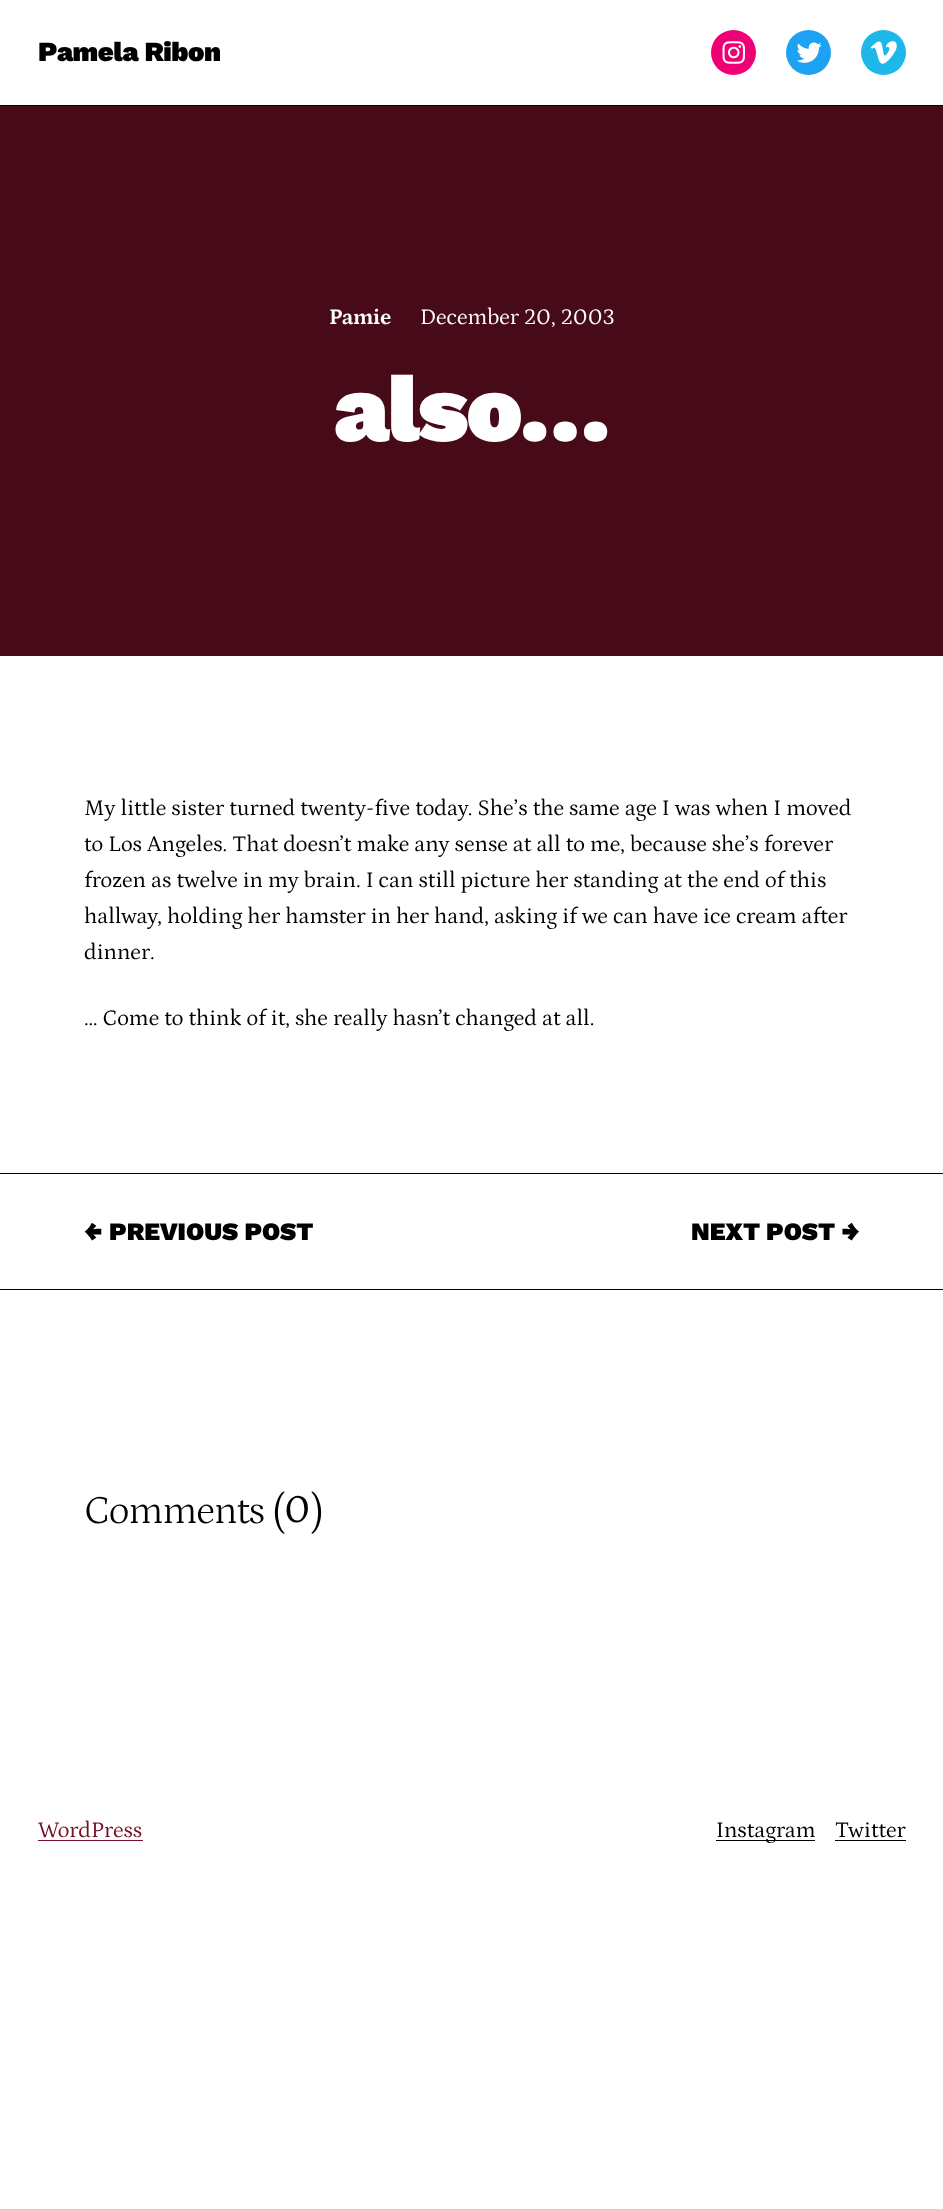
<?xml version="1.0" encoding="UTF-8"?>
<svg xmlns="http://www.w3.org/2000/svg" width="943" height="2209">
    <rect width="100%" height="100%" fill="#FFFFFF"/>
    <text x="38" y="61" font-family="Work Sans" font-size="27.5" font-weight="900" letter-spacing="-0.5" fill="#000000">Pamela Ribon</text>
    <circle cx="733.5" cy="52.5" r="22.5" fill="#F00075"/>
    <image x="722" y="41" width="23" height="23" href="img_01.png"/>
    <circle cx="808.5" cy="52.5" r="22.5" fill="#1DA1F2"/>
    <image x="796" y="42" width="26" height="21" href="img_02.png"/>
    <circle cx="883.5" cy="52.5" r="22.5" fill="#1EB7EA"/>
    <image x="870" y="41" width="27" height="23" href="img_03.png"/>
    <rect x="0" y="105" width="943" height="1" fill="#000000"/>
    <rect x="0" y="106" width="943" height="550" fill="#470A18"/>
    <text x="329" y="324" font-family="Petrona" font-size="22.5" font-weight="700" letter-spacing="-0.5" fill="#FFFFFF">Pamie</text>
    <text x="420" y="324" font-family="Petrona" font-size="22.5" fill="#FFFFFF">December 20, 2003</text>
    <text x="334" y="441" font-family="Work Sans" font-size="94.5" font-weight="900" letter-spacing="-2" fill="#FFFFFF">also…</text>
    <text font-family="Petrona" font-size="22.5" fill="#000000">
        <tspan x="84" y="815">My little sister turned twenty-five today. She’s the same age I was when I moved</tspan>
        <tspan x="84" y="851">to Los Angeles. That doesn’t make any sense at all to me, because she’s forever</tspan>
        <tspan x="84" y="887">frozen as twelve in my brain. I can still picture her standing at the end of this</tspan>
        <tspan x="84" y="923">hallway, holding her hamster in her hand, asking if we can have ice cream after</tspan>
        <tspan x="84" y="959">dinner.</tspan>
    </text>
    <text x="84" y="1025" font-family="Petrona" font-size="22.5" fill="#000000">… Come to think of it, she really hasn’t changed at all.</text>
    <rect x="0" y="1173" width="943" height="1" fill="#000000"/>
    <rect x="0" y="1289" width="943" height="1" fill="#000000"/>
    <text x="84" y="1240" font-family="Work Sans" font-size="25" font-weight="900" fill="#000000">← PREVIOUS POST</text>
    <text x="691" y="1240" font-family="Work Sans" font-size="25" font-weight="900" fill="#000000">NEXT POST →</text>
    <text x="84" y="1523" font-family="Petrona" font-size="40" font-weight="300" letter-spacing="-0.75" fill="#000000">Comments (</text>
    <text x="284" y="1522" font-family="Petrona" font-size="40" fill="#000000">0</text>
    <text x="311" y="1523" font-family="Petrona" font-size="40" font-weight="300" letter-spacing="-0.75" fill="#000000">)</text>
    <text x="38" y="1837" font-family="Petrona" font-size="22.5" fill="#761028">WordPress</text>
    <rect x="38" y="1840" width="105" height="1" fill="#761028"/>
    <rect x="716" y="1840" width="99" height="1" fill="#000000"/>
    <text x="716" y="1837" font-family="Petrona" font-size="22.5" fill="#000000">Instagram</text>
    <text x="835" y="1837" font-family="Petrona" font-size="22.5" fill="#000000">Twitter</text>
    <rect x="835" y="1840" width="71" height="1" fill="#000000"/>
</svg>
